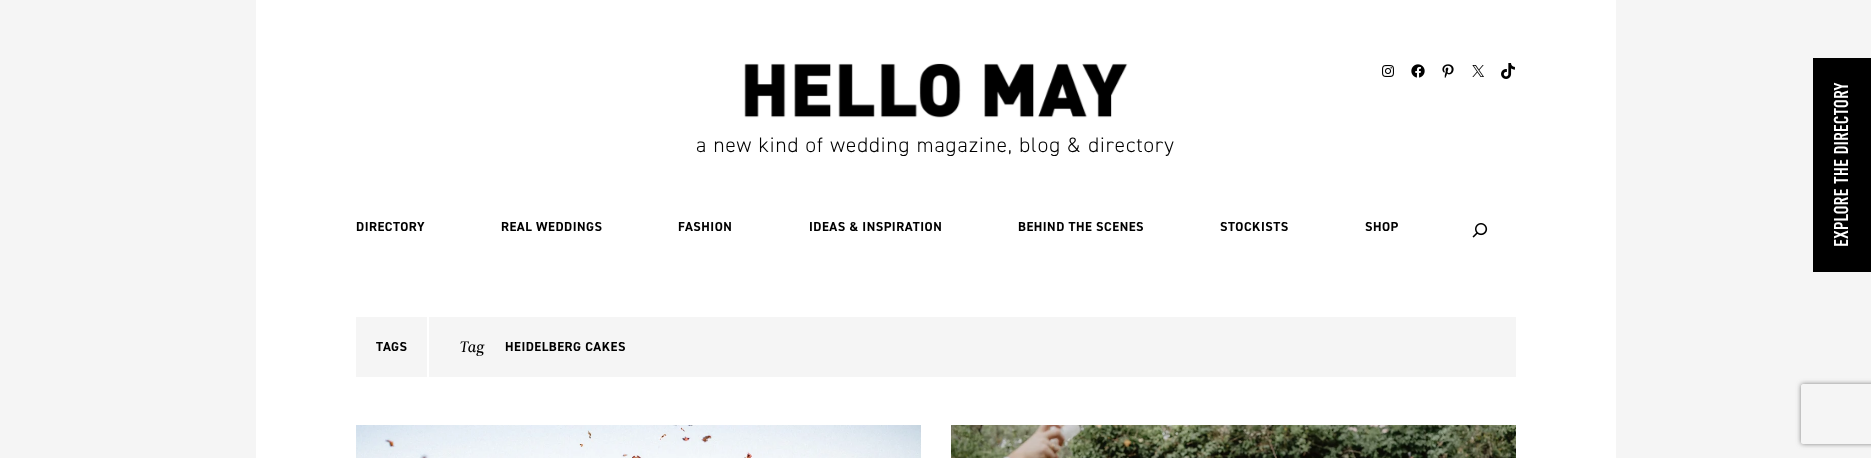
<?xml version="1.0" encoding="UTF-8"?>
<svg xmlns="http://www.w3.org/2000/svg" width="1871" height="458">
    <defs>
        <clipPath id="clip1"><path d="M 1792 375 H 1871 V 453 H 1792 Z M 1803 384 H 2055 C 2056 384 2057 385 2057 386 V 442 C 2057 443 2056 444 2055 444 H 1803 C 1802 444 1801 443 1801 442 V 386 C 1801 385 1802 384 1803 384 Z" clip-rule="evenodd"/></clipPath>
        <filter id="blur1" x="-50%" y="-200%" width="200%" height="500%"><feGaussianBlur stdDeviation="2.5"/></filter>
    </defs>
    <rect width="100%" height="100%" fill="#F5F5F5"/>
    <rect x="256" y="0" width="1360" height="458" fill="#FFFFFF"/>
    <image x="1382" y="65" width="12" height="12" href="img_01.png"/>
    <image x="1411" y="64" width="14" height="14" href="img_02.png"/>
    <image x="1442" y="64" width="12" height="14" href="img_03.png"/>
    <image x="1472" y="65" width="12" height="12" href="img_04.png"/>
    <image x="1501" y="63" width="14" height="16" href="img_05.png"/>
    <image x="744" y="63" width="384" height="55" href="img_06.png"/>
    <text x="696" y="152" font-family="'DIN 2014'" font-size="21" font-weight="300" letter-spacing="1" fill="#000000">a new kind of wedding magazine, blog &amp; directory</text>
    <text x="356" y="231" font-family="'DIN 2014'" font-size="13" font-weight="700" letter-spacing="0.5" fill="#000000">DIRECTORY</text>
    <text x="501" y="231" font-family="'DIN 2014'" font-size="13" font-weight="700" letter-spacing="0.5" fill="#000000">REAL WEDDINGS</text>
    <text x="678" y="231" font-family="'DIN 2014'" font-size="13" font-weight="700" letter-spacing="0.5" fill="#000000">FASHION</text>
    <text x="809" y="231" font-family="'DIN 2014'" font-size="13" font-weight="700" letter-spacing="0.5" fill="#000000">IDEAS &amp; INSPIRATION</text>
    <text x="1018" y="231" font-family="'DIN 2014'" font-size="13" font-weight="700" letter-spacing="0.5" fill="#000000">BEHIND THE SCENES</text>
    <text x="1220" y="231" font-family="'DIN 2014'" font-size="13" font-weight="700" letter-spacing="0.5" fill="#000000">STOCKISTS</text>
    <text x="1365" y="231" font-family="'DIN 2014'" font-size="13" font-weight="700" letter-spacing="0.5" fill="#000000">SHOP</text>
    <image x="1472" y="223" width="16" height="15" href="img_07.png"/>
    <rect x="356" y="317" width="1160" height="60" fill="#F5F5F5"/>
    <text x="376" y="351" font-family="'DIN 2014'" font-size="13" font-weight="700" letter-spacing="0.5" fill="#000000">TAGS</text>
    <rect x="427" y="317" width="2" height="60" fill="#FFFFFF"/>
    <text x="459" y="352" font-family="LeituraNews" font-size="15" font-style="italic" fill="#000000">Tag</text>
    <text x="505" y="351" font-family="'DIN 2014'" font-size="13" font-weight="700" letter-spacing="0.5" fill="#000000">HEIDELBERG CAKES</text>
    <image x="356" y="425" width="565" height="33" href="img_08.png"/>
    <image x="951" y="425" width="565" height="33" href="img_09.png"/>
    <rect x="1813" y="58" width="58" height="214" fill="#000000"/>
    <text x="1848" y="247" transform="rotate(-90 1848 247)" font-family="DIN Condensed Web" font-size="20" fill="#FFFFFF">EXPLORE THE DIRECTORY</text>
    <g clip-path="url(#clip1)">
        <rect x="1801" y="384" width="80" height="60" rx="2" fill="#808080" filter="url(#blur1)"/>
    </g>
</svg>
